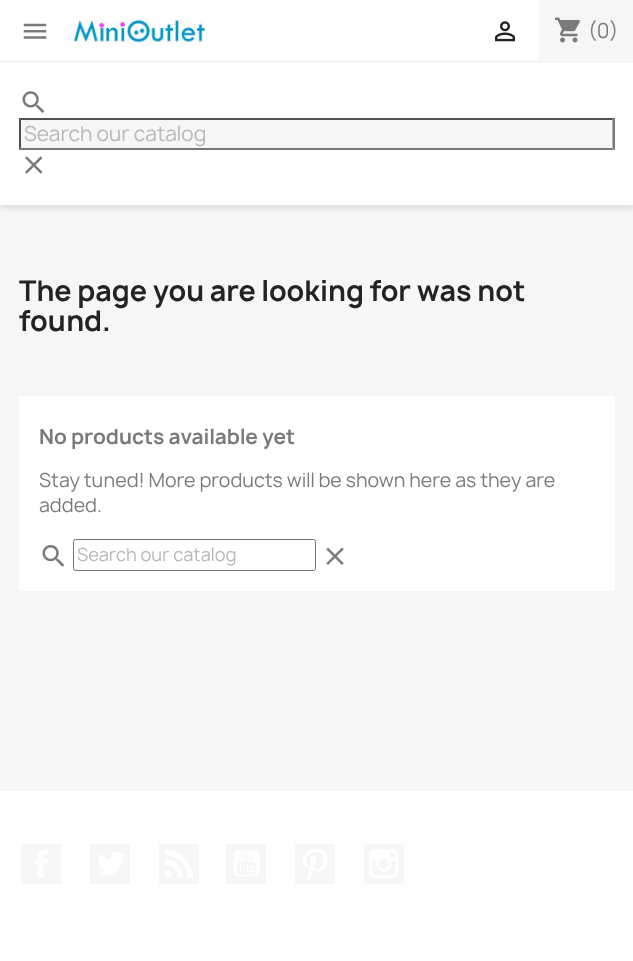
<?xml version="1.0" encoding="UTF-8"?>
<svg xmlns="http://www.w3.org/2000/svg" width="633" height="961">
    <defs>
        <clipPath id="clip1"><rect x="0" y="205" width="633" height="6"/></clipPath>
        <filter id="blur1" x="-50%" y="-200%" width="200%" height="500%"><feGaussianBlur stdDeviation="3"/></filter>
    </defs>
    <rect width="100%" height="100%" fill="#FFFFFF"/>
    <rect x="0" y="205" width="633" height="586" fill="#F6F6F6"/>
    <g clip-path="url(#clip1)">
        <rect x="0" y="3" width="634" height="205" fill="#000000" fill-opacity="0.11" filter="url(#blur1)"/>
    </g>
    <rect x="0" y="60" width="633" height="3" fill="#F6F6F6"/>
    <image x="23" y="23" width="24" height="16" href="img_01.png"/>
    <image x="70" y="18" width="136" height="29" href="img_02.png"/>
    <image x="495" y="21" width="20" height="21" href="img_03.png"/>
    <rect x="539" y="0" width="94" height="60" fill="#F6F6F6"/>
    <image x="555" y="17" width="25" height="26" href="img_04.png"/>
    <text x="588" y="38" font-family="Manrope" font-size="20" fill="#7A7A7A">(0)</text>
    <image x="22" y="91" width="23" height="22" href="img_05.png"/>
    <rect x="19" y="118" width="596" height="32" fill="#F6F6F6"/>
    <path d="M 19 118 H 615 L 612 120 H 21 Z" fill="#4F4F4F"/>
    <path d="M 615 117.5 V 150 L 612.5 147.5 V 120 Z" fill="#767676"/>
    <path d="M 615 150 H 19 L 21 148 H 612 Z" fill="#767676"/>
    <path d="M 19 150 V 117.5 L 21 120 V 147.5 Z" fill="#4F4F4F"/>
    <text x="24" y="141" font-family="Manrope" font-size="20" fill="#B7B7B7">Search our catalog</text>
    <image x="25" y="156" width="18" height="18" href="img_06.png"/>
    <text font-family="Manrope" font-size="27.5" font-weight="700" fill="#232323">
        <tspan x="19" y="301">The page you are looking for was not</tspan>
        <tspan x="19" y="331">found.</tspan>
    </text>
    <rect x="19" y="396" width="596" height="195" fill="#FFFFFF"/>
    <text x="39" y="444" font-family="Manrope" font-size="20" font-weight="700" fill="#7A7A7A">No products available yet</text>
    <text font-family="Manrope" font-size="18.75" fill="#7A7A7A">
        <tspan x="39" y="487">Stay tuned! More products will be shown here as they are</tspan>
        <tspan x="39" y="512">added.</tspan>
    </text>
    <image x="42" y="545" width="23" height="22" href="img_07.png"/>
    <rect x="73.5" y="539.5" width="242" height="31" rx="2" fill="none" stroke="#767676"/>
    <text x="77" y="561" font-family="Manrope" font-size="17.5" fill="#B7B7B7">Search our catalog</text>
    <image x="326" y="547" width="18" height="18" href="img_08.png"/>
    <rect x="21" y="844" width="40" height="40" fill="#F6F6F6"/>
    <image x="34" y="849" width="14" height="29" href="img_09.png"/>
    <rect x="90" y="844" width="40" height="40" fill="#F6F6F6"/>
    <image x="97" y="852" width="28" height="24" href="img_10.png"/>
    <rect x="159" y="844" width="40" height="40" fill="#F6F6F6"/>
    <image x="165" y="850" width="28" height="28" href="img_11.png"/>
    <rect x="226" y="844" width="40" height="40" fill="#F6F6F6"/>
    <image x="233" y="850" width="27" height="27" href="img_12.png"/>
    <rect x="295" y="844" width="40" height="40" fill="#F6F6F6"/>
    <image x="303" y="849" width="25" height="31" href="img_13.png"/>
    <rect x="364" y="844" width="40" height="40" fill="#F6F6F6"/>
    <image x="369" y="849" width="29" height="29" href="img_14.png"/>
</svg>
